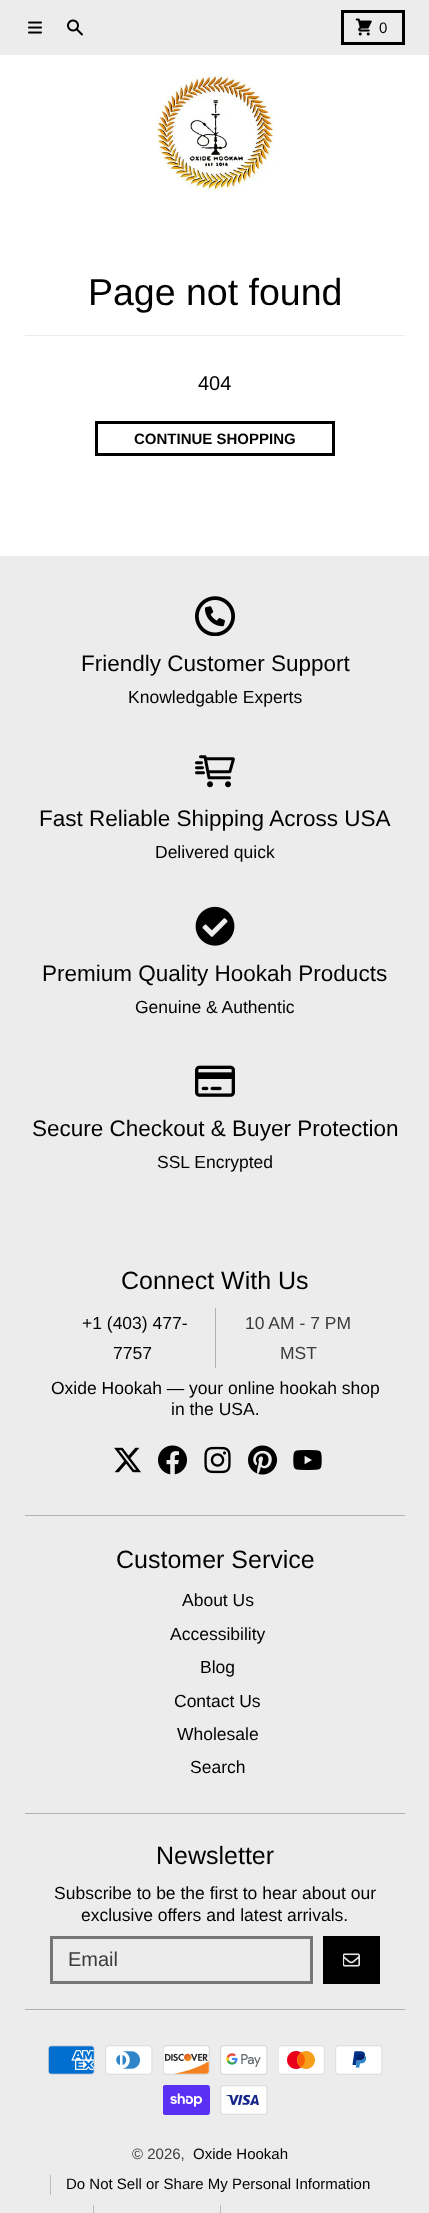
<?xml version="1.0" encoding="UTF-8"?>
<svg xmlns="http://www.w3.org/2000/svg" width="429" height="2213">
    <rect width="100%" height="100%" fill="#ECECEC"/>
    <image x="28" y="21" width="14" height="13" href="img_01.png"/>
    <image x="67" y="19" width="16" height="17" href="img_02.png"/>
    <rect x="342.5" y="11.5" width="61" height="32" fill="none" stroke="#000000" stroke-width="3"/>
    <image x="355" y="18" width="17" height="18" href="img_03.png"/>
    <text x="379" y="33" font-family="Liberation Sans" font-size="15" fill="#000000">0</text>
    <rect x="0" y="55" width="429" height="501" fill="#FFFFFF"/>
    <image x="157" y="74" width="117" height="117" href="img_04.png"/>
    <rect x="25" y="335" width="380" height="1" fill="#ECECEC"/>
    <text x="88" y="305" font-family="Liberation Sans" font-size="37.5" fill="#000000">Page not found</text>
    <text x="198" y="390" font-family="Liberation Sans" font-size="20" fill="#000000">404</text>
    <rect x="96.5" y="422.5" width="237" height="32" fill="none" stroke="#000000" stroke-width="3"/>
    <text x="134" y="444" font-family="Liberation Sans" font-size="15" font-weight="700" fill="#000000">CONTINUE SHOPPING</text>
    <image x="195" y="596" width="40" height="40" href="img_05.png"/>
    <text x="81" y="671" font-family="Liberation Sans" font-size="22.5" fill="#000000">Friendly Customer Support</text>
    <text x="128" y="703" font-family="Liberation Sans" font-size="17.5" fill="#000000">Knowledgable Experts</text>
    <image x="195" y="755" width="40" height="33" href="img_06.png"/>
    <text x="39" y="826" font-family="Liberation Sans" font-size="22.5" fill="#000000">Fast Reliable Shipping Across USA</text>
    <text x="155" y="858" font-family="Liberation Sans" font-size="17.5" fill="#000000">Delivered quick</text>
    <image x="195" y="906" width="40" height="40" href="img_07.png"/>
    <text x="42" y="981" font-family="Liberation Sans" font-size="22.5" fill="#000000">Premium Quality Hookah Products</text>
    <text x="135" y="1013" font-family="Liberation Sans" font-size="17.5" fill="#000000">Genuine &amp; Authentic</text>
    <image x="195" y="1065" width="40" height="32" href="img_08.png"/>
    <text x="32" y="1136" font-family="Liberation Sans" font-size="22.5" fill="#000000">Secure Checkout &amp; Buyer Protection</text>
    <text x="157" y="1168" font-family="Liberation Sans" font-size="17.5" fill="#000000">SSL Encrypted</text>
    <text x="121" y="1289" font-family="Liberation Sans" font-size="25" fill="#000000">Connect With Us</text>
    <text x="82" y="1329" font-family="Liberation Sans" font-size="17.5" fill="#000000">+1 (403) 477-</text>
    <text x="113" y="1359" font-family="Liberation Sans" font-size="17.5" fill="#000000">7757</text>
    <rect x="215" y="1308" width="1" height="60" fill="#B1B1B1"/>
    <text x="245" y="1329" font-family="Liberation Sans" font-size="17.5" fill="#3B3B3B">10 AM - 7 PM</text>
    <text x="280" y="1359" font-family="Liberation Sans" font-size="17.5" fill="#3B3B3B">MST</text>
    <text x="51" y="1394" font-family="Liberation Sans" font-size="17.5" fill="#000000">Oxide Hookah — your online hookah shop</text>
    <text x="171" y="1415" font-family="Liberation Sans" font-size="17.5" fill="#000000">in the USA.</text>
    <image x="114" y="1447" width="27" height="26" href="img_09.png"/>
    <image x="158" y="1445" width="29" height="30" href="img_10.png"/>
    <image x="204" y="1446" width="27" height="28" href="img_11.png"/>
    <image x="248" y="1445" width="29" height="30" href="img_12.png"/>
    <image x="293" y="1450" width="29" height="20" href="img_13.png"/>
    <rect x="25" y="1515" width="380" height="1" fill="#B1B1B1"/>
    <text x="116" y="1568" font-family="Liberation Sans" font-size="25" fill="#000000">Customer Service</text>
    <text x="182" y="1606" font-family="Liberation Sans" font-size="17.5" fill="#000000">About Us</text>
    <text x="170" y="1640" font-family="Liberation Sans" font-size="17.5" fill="#000000">Accessibility</text>
    <text x="200" y="1673" font-family="Liberation Sans" font-size="17.5" fill="#000000">Blog</text>
    <text x="174" y="1707" font-family="Liberation Sans" font-size="17.5" fill="#000000">Contact Us</text>
    <text x="177" y="1740" font-family="Liberation Sans" font-size="17.5" fill="#000000">Wholesale</text>
    <text x="190" y="1773" font-family="Liberation Sans" font-size="17.5" fill="#000000">Search</text>
    <rect x="25" y="1813" width="380" height="1" fill="#B1B1B1"/>
    <text x="156" y="1864" font-family="Liberation Sans" font-size="25" fill="#000000">Newsletter</text>
    <text x="54" y="1899" font-family="Liberation Sans" font-size="17.5" fill="#000000">Subscribe to be the first to hear about our</text>
    <text x="81" y="1921" font-family="Liberation Sans" font-size="17.5" fill="#000000">exclusive offers and latest arrivals.</text>
    <rect x="51.5" y="1937.5" width="260" height="45" fill="none" stroke="#767676" stroke-width="3"/>
    <text x="68" y="1966" font-family="Liberation Sans" font-size="20" fill="#3B3B3B">Email</text>
    <rect x="323" y="1936" width="57" height="48" fill="#000000"/>
    <image x="343" y="1953" width="17" height="14" href="img_14.png"/>
    <rect x="25" y="2009" width="380" height="1" fill="#B1B1B1"/>
    <image x="48" y="2045" width="47" height="30" href="img_15.png"/>
    <image x="105" y="2045" width="48" height="30" href="img_16.png"/>
    <image x="163" y="2045" width="47" height="30" href="img_17.png"/>
    <image x="220" y="2045" width="48" height="30" href="img_18.png"/>
    <image x="278" y="2045" width="47" height="30" href="img_19.png"/>
    <image x="335" y="2045" width="48" height="30" href="img_20.png"/>
    <image x="163" y="2085" width="47" height="30" href="img_21.png"/>
    <image x="220" y="2085" width="48" height="30" href="img_22.png"/>
    <text x="132" y="2159" font-family="Liberation Sans" font-size="15" fill="#3B3B3B">© 2026,</text>
    <text x="193" y="2159" font-family="Liberation Sans" font-size="15" fill="#000000">Oxide Hookah</text>
    <rect x="50" y="2175" width="1" height="20" fill="#BDBDBD"/>
    <text x="66" y="2189" font-family="Liberation Sans" font-size="15" fill="#000000">Do Not Sell or Share My Personal Information</text>
    <rect x="93" y="2205" width="1" height="8" fill="#BDBDBD"/>
    <rect x="220" y="2205" width="1" height="8" fill="#BDBDBD"/>
</svg>
